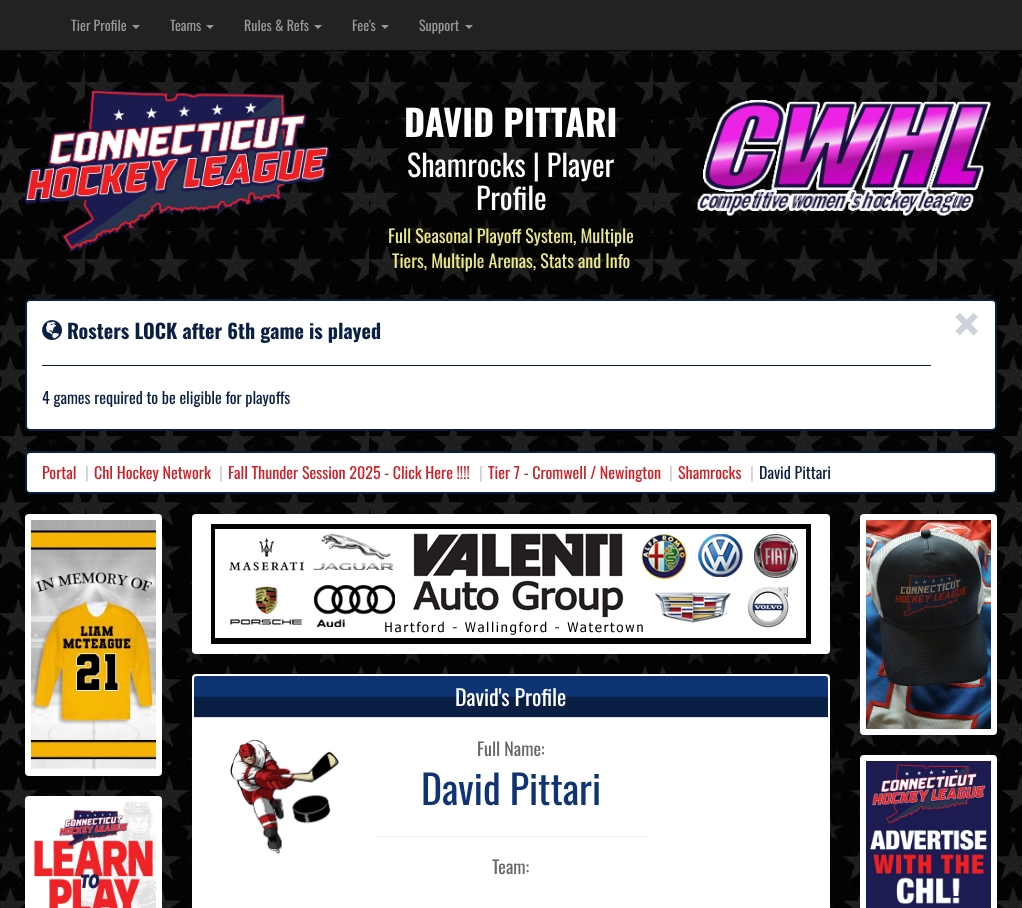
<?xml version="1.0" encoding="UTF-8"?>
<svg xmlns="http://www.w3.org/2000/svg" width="1022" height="908">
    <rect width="100%" height="100%" fill="#FFFFFF"/>
    <image x="0" y="51" width="1022" height="857" href="img_01.png"/>
    <rect x="0" y="0" width="1022" height="50" fill="#222222"/>
    <rect x="0" y="50" width="1022" height="1" fill="#080808"/>
    <text x="71" y="31" font-family="Oswald" font-size="14" fill="#999999">Tier Profile</text>
    <path d="M 132 25 H 140 L 136 29 Z" fill="#999999"/>
    <text x="170" y="31" font-family="Oswald" font-size="14" fill="#999999">Teams</text>
    <path d="M 206 25 H 214 L 210 29 Z" fill="#999999"/>
    <text x="244" y="31" font-family="Oswald" font-size="14" fill="#999999">Rules &amp; Refs</text>
    <path d="M 314 25 H 322 L 318 29 Z" fill="#999999"/>
    <text x="352" y="31" font-family="Oswald" font-size="14" fill="#999999">Fee's</text>
    <path d="M 381 25 H 389 L 385 29 Z" fill="#999999"/>
    <text x="419" y="31" font-family="Oswald" font-size="14" fill="#999999">Support</text>
    <path d="M 465 25 H 473 L 469 29 Z" fill="#999999"/>
    <image x="25" y="90" width="304" height="163" href="img_02.png"/>
    <text x="404" y="137" font-family="Oswald" font-size="36" font-weight="700" fill="#FFFFFF">DAVID PITTARI</text>
    <text x="407" y="177" font-family="Oswald" font-size="30" fill="#FFFFFF">Shamrocks | Player</text>
    <text x="476" y="210" font-family="Oswald" font-size="30" fill="#FFFFFF">Profile</text>
    <text x="388" y="243" font-family="Oswald" font-size="18" fill="#EAE988">Full Seasonal Playoff System, Multiple</text>
    <text x="392" y="268" font-family="Oswald" font-size="18" fill="#EAE988">Tiers, Multiple Arenas, Stats and Info</text>
    <image x="697" y="100" width="294" height="116" href="img_03.png"/>
    <rect x="26" y="300" width="970" height="130" rx="4" fill="#FFFFFF" stroke="#091F44" stroke-width="2"/>
    <image x="42" y="320" width="20" height="20" href="img_04.png"/>
    <text x="67" y="339" font-family="Oswald" font-size="20" font-weight="700" fill="#091F44">Rosters LOCK after 6th game is played</text>
    <text x="952" y="349" font-family="Oswald" font-size="60" font-weight="700" fill="#CED2DA">×</text>
    <rect x="42" y="365" width="889" height="1" fill="#091F44"/>
    <text x="42" y="404" font-family="Oswald" font-size="16" fill="#091F44">4 games required to be eligible for playoffs</text>
    <rect x="26" y="452" width="970" height="41" rx="4" fill="#FFFFFF" stroke="#091F44" stroke-width="2"/>
    <text x="42" y="479" font-family="Oswald" font-size="16" fill="#CF2027">Portal</text>
    <text x="85" y="479" font-family="Oswald" font-size="16" fill="#CCCCCC">|</text>
    <text x="94" y="479" font-family="Oswald" font-size="16" fill="#CF2027">Chl Hockey Network</text>
    <text x="219" y="479" font-family="Oswald" font-size="16" fill="#CCCCCC">|</text>
    <text x="228" y="479" font-family="Oswald" font-size="16" fill="#CF2027">Fall Thunder Session 2025 - Click Here !!!!</text>
    <text x="479" y="479" font-family="Oswald" font-size="16" fill="#CCCCCC">|</text>
    <text x="488" y="479" font-family="Oswald" font-size="16" fill="#CF2027">Tier 7 - Cromwell / Newington</text>
    <text x="669" y="479" font-family="Oswald" font-size="16" fill="#CCCCCC">|</text>
    <text x="678" y="479" font-family="Oswald" font-size="16" fill="#CF2027">Shamrocks</text>
    <text x="750" y="479" font-family="Oswald" font-size="16" fill="#CCCCCC">|</text>
    <text x="759" y="479" font-family="Oswald" font-size="16" fill="#091F44">David Pittari</text>
    <rect x="25" y="514" width="137" height="262" rx="4" fill="#FFFFFF"/>
    <image x="31" y="520" width="125" height="250" href="img_05.png"/>
    <rect x="25" y="796" width="137" height="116" rx="4" fill="#FFFFFF"/>
    <image x="34" y="802" width="122" height="106" href="img_06.png"/>
    <rect x="192" y="514" width="638" height="140" rx="4" fill="#FFFFFF"/>
    <image x="211" y="524" width="600" height="120" href="img_07.png"/>
    <rect x="192" y="674" width="638" height="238" rx="4" fill="#FFFFFF"/>
    <image x="194" y="676" width="634" height="41" href="img_08.png"/>
    <rect x="194" y="717" width="634" height="1" fill="#DDDDDD"/>
    <text x="455" y="706" font-family="Oswald" font-size="22" fill="#FFFFFF">David's Profile</text>
    <image x="230" y="739" width="110" height="115" href="img_09.png"/>
    <text x="477" y="756" font-family="Oswald" font-size="18" fill="#666666">Full Name:</text>
    <text x="421" y="805" font-family="Oswald" font-size="40" fill="#0E3473">David Pittari</text>
    <rect x="375" y="836" width="272" height="1" fill="#EEEEEE"/>
    <text x="492" y="874" font-family="Oswald" font-size="18" fill="#666666">Team:</text>
    <rect x="860" y="514" width="137" height="221" rx="4" fill="#FFFFFF"/>
    <image x="866" y="520" width="125" height="209" href="img_10.png"/>
    <rect x="860" y="755" width="137" height="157" rx="4" fill="#FFFFFF"/>
    <image x="866" y="761" width="125" height="147" href="img_11.png"/>
</svg>
